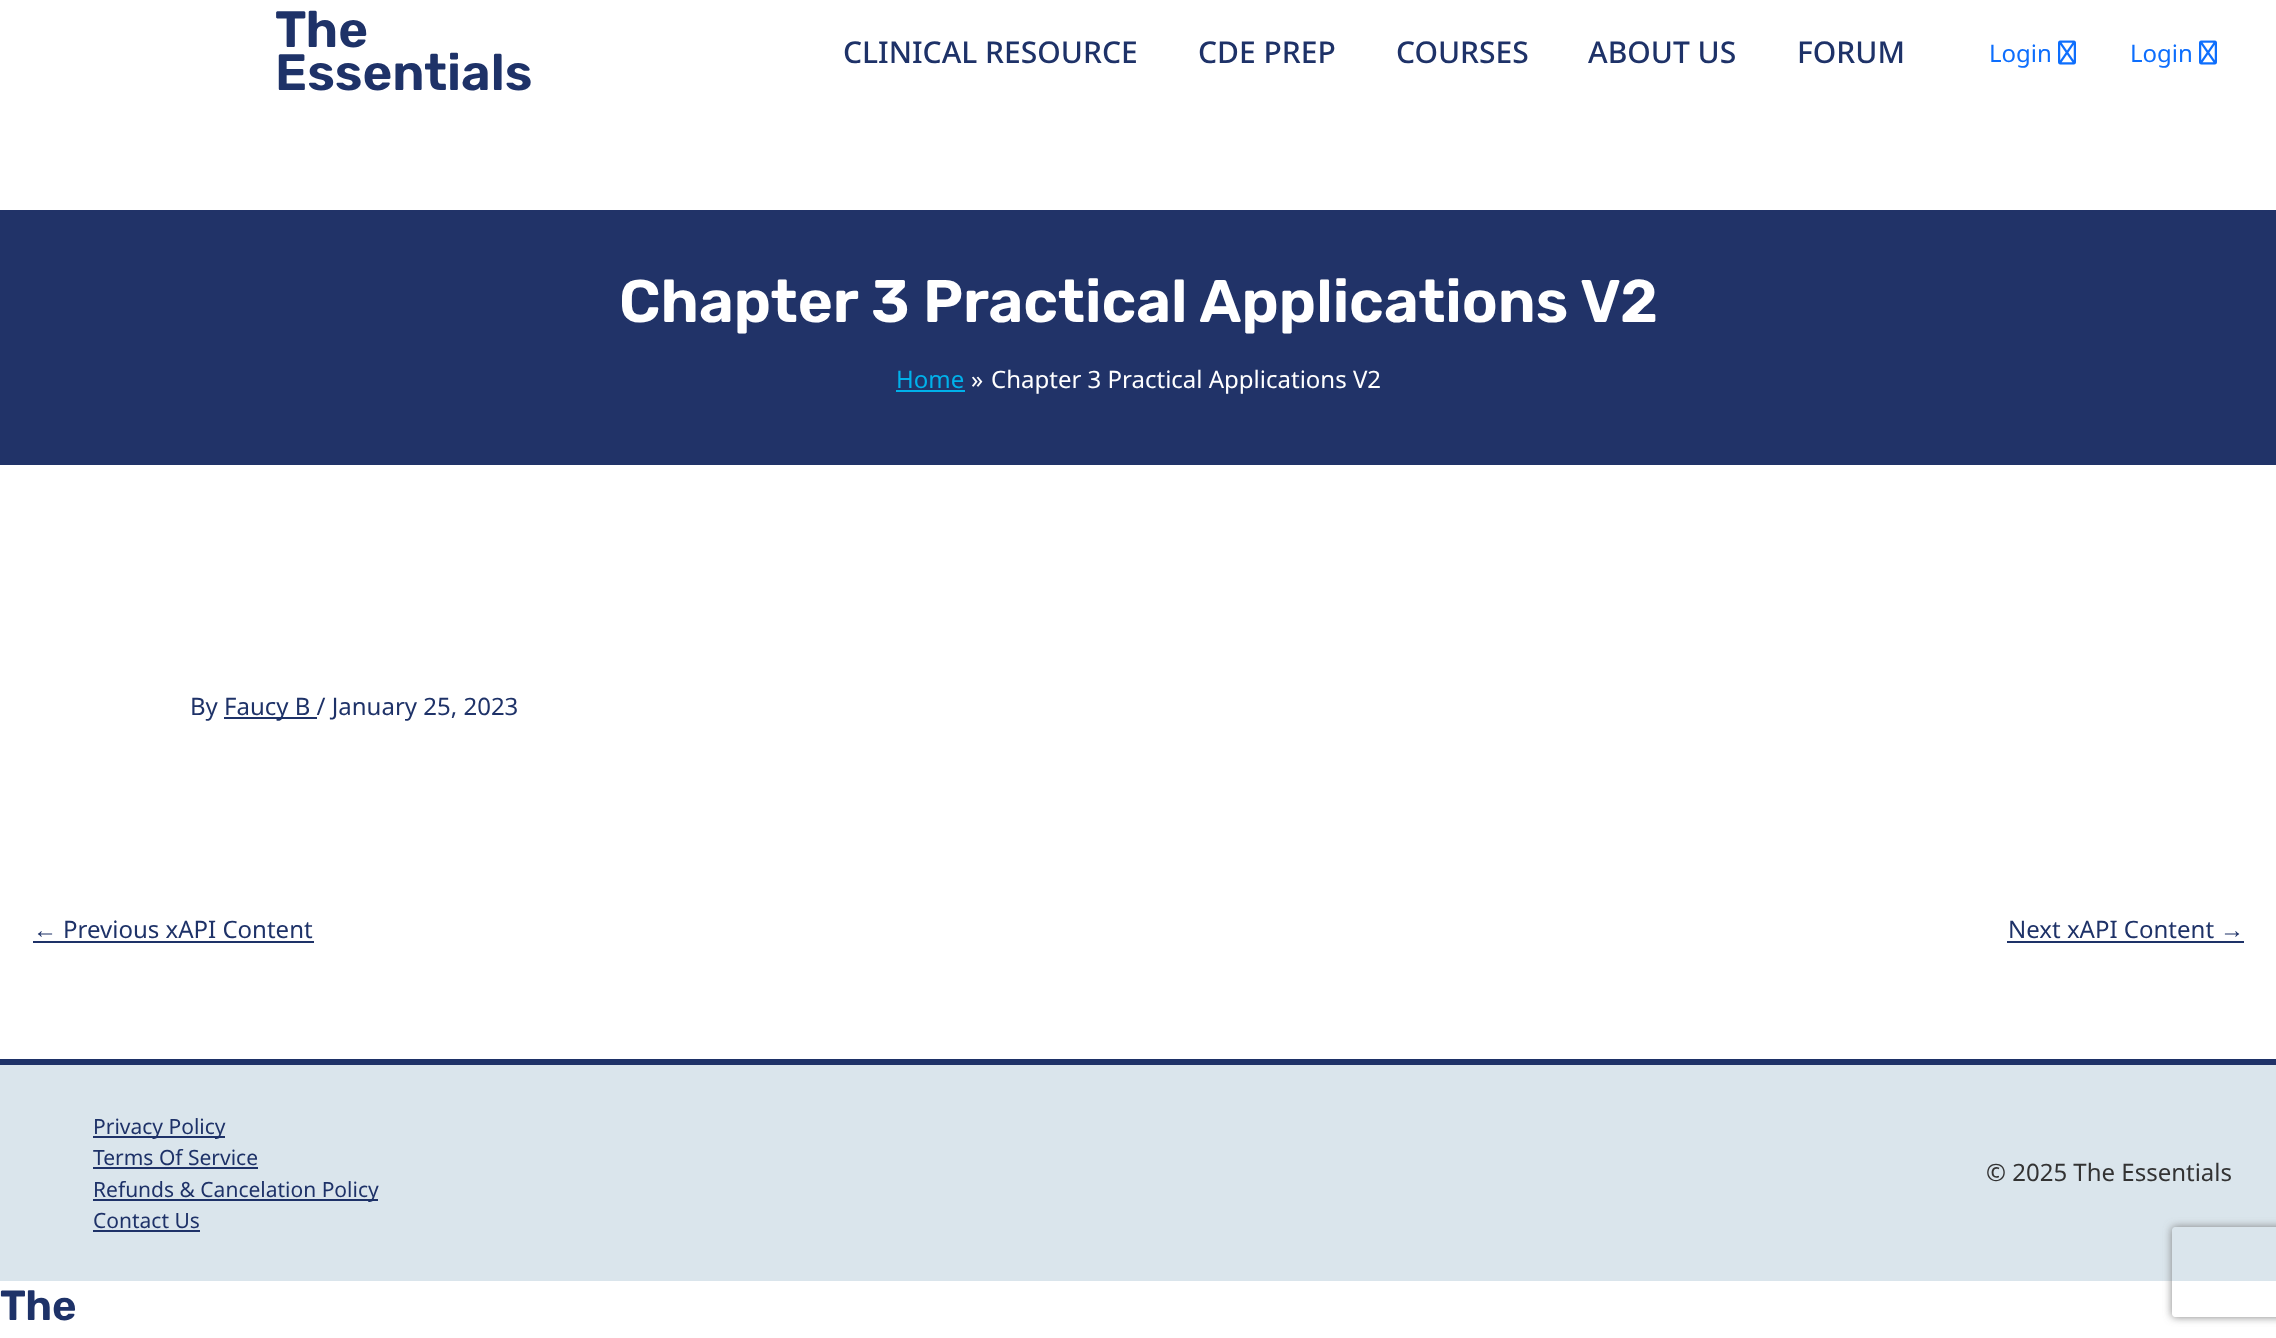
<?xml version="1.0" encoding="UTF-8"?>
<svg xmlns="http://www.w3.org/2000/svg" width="2276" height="1338">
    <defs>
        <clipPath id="clip1"><path d="M 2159 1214 H 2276 V 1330 H 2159 Z M 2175 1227 H 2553 C 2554.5 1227 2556 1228.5 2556 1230 V 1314 C 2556 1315.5 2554.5 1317 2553 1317 H 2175 C 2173.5 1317 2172 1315.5 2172 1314 V 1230 C 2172 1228.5 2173.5 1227 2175 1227 Z" clip-rule="evenodd"/></clipPath>
        <filter id="blur1" x="-50%" y="-200%" width="200%" height="500%"><feGaussianBlur stdDeviation="4"/></filter>
    </defs>
    <rect width="100%" height="100%" fill="#FFFFFF"/>
    <text font-family="Rubik" font-size="51" font-weight="600" fill="#1E3268">
        <tspan x="275" y="47">The</tspan>
        <tspan x="275" y="90">Essentials</tspan>
    </text>
    <text x="843" y="63" font-family="Noto Sans" font-size="30" font-weight="500" fill="#1E3268">CLINICAL RESOURCE</text>
    <text x="1198" y="63" font-family="Noto Sans" font-size="30" font-weight="500" fill="#1E3268">CDE PREP</text>
    <text x="1396" y="63" font-family="Noto Sans" font-size="30" font-weight="500" fill="#1E3268">COURSES</text>
    <text x="1588" y="63" font-family="Noto Sans" font-size="30" font-weight="500" fill="#1E3268">ABOUT US</text>
    <text x="1797" y="63" font-family="Noto Sans" font-size="30" font-weight="500" fill="#1E3268">FORUM</text>
    <text x="1989" y="62" font-family="Noto Sans" font-size="24" fill="#0D6EFD">Login</text>
    <image x="2058" y="40" width="18" height="25" href="img_01.png"/>
    <text x="2130" y="62" font-family="Noto Sans" font-size="24" fill="#0D6EFD">Login</text>
    <image x="2199" y="40" width="18" height="25" href="img_01.png"/>
    <rect x="0" y="210" width="2276" height="255" fill="#213368"/>
    <text x="619" y="322" font-family="Rubik" font-size="60" font-weight="600" fill="#FFFFFF">Chapter 3 Practical Applications V2</text>
    <text x="896" y="388" font-family="Noto Sans" font-size="24" fill="#00B1EA">Home</text>
    <rect x="896" y="390" width="69" height="2" fill="#00B1EA"/>
    <text x="971" y="388" font-family="Noto Sans" font-size="24" fill="#FFFFFF">»</text>
    <text x="991" y="388" font-family="Noto Sans" font-size="24" fill="#FFFFFF">Chapter 3 Practical Applications V2</text>
    <text x="190" y="715" font-family="Noto Sans" font-size="24" fill="#1E3268">By</text>
    <rect x="224" y="717" width="93" height="2" fill="#1E3268"/>
    <text x="224" y="715" font-family="Noto Sans" font-size="24" fill="#1E3268">Faucy B / January 25, 2023</text>
    <text x="33" y="938" font-family="Liberation Sans" font-size="24" fill="#1E3268">←</text>
    <rect x="33" y="941" width="281" height="2" fill="#1E3268"/>
    <text x="63" y="938" font-family="Noto Sans" font-size="24" fill="#1E3268">Previous xAPI Content</text>
    <text x="2008" y="938" font-family="Noto Sans" font-size="24" fill="#1E3268">Next xAPI Content</text>
    <rect x="2007" y="941" width="237" height="2" fill="#1E3268"/>
    <text x="2220" y="938" font-family="Liberation Sans" font-size="24" fill="#1E3268">→</text>
    <rect x="0" y="1065" width="2276" height="216" fill="#DAE5EC"/>
    <rect x="0" y="1059" width="2276" height="6" fill="#1E3268"/>
    <rect x="93" y="1136" width="132" height="2" fill="#1E3268"/>
    <text font-family="Noto Sans" font-size="21" fill="#1E3268">
        <tspan x="93" y="1134">Privacy Policy</tspan>
        <tspan x="93" y="1165">Terms Of Service</tspan>
    </text>
    <rect x="93" y="1167" width="165" height="2" fill="#1E3268"/>
    <rect x="93" y="1199" width="285" height="2" fill="#1E3268"/>
    <text font-family="Noto Sans" font-size="21" fill="#1E3268">
        <tspan x="93" y="1197">Refunds &amp; Cancelation Policy</tspan>
        <tspan x="93" y="1228">Contact Us</tspan>
    </text>
    <rect x="93" y="1230" width="107" height="2" fill="#1E3268"/>
    <text x="1986" y="1181" font-family="Noto Sans" font-size="24" fill="#333333">© 2025 The Essentials</text>
    <text x="0" y="1320" font-family="Rubik" font-size="42" font-weight="600" fill="#1E3268">The</text>
    <g clip-path="url(#clip1)">
        <rect x="2172" y="1227" width="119" height="90" rx="3" fill="#808080" filter="url(#blur1)"/>
    </g>
</svg>
